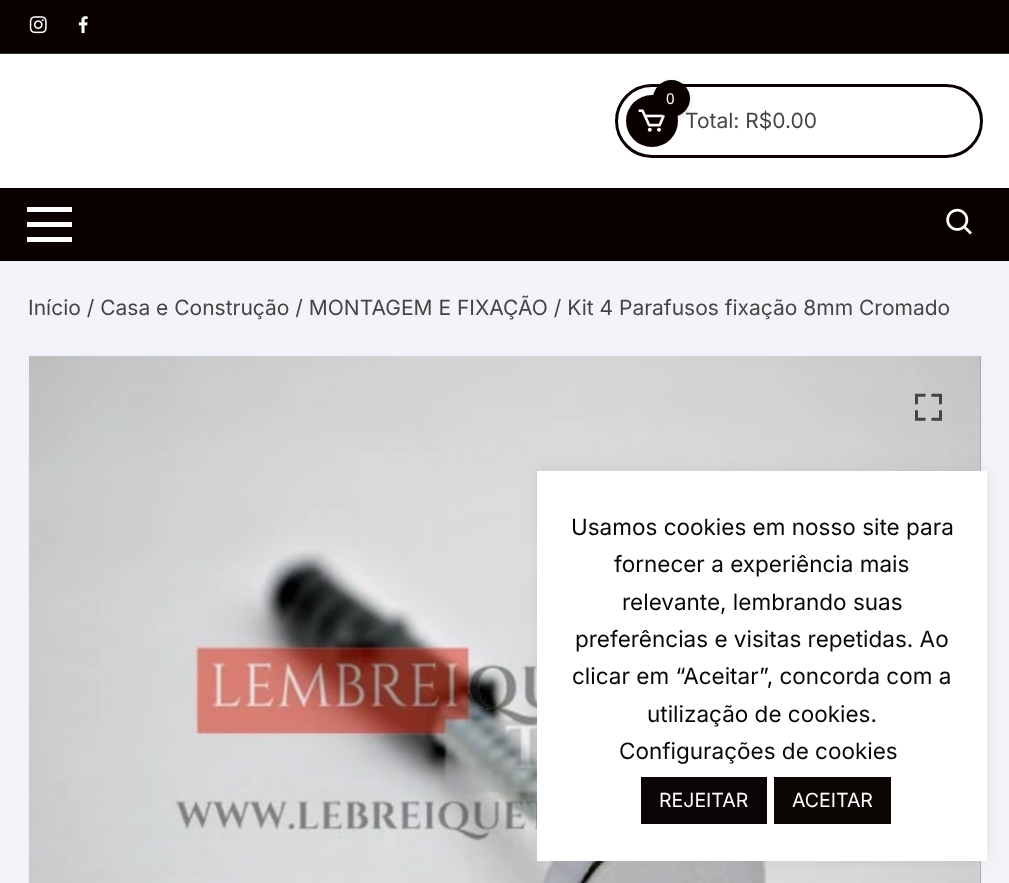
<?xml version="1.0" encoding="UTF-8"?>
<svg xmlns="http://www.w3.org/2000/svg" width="1009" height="883">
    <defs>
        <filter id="blur1" x="-50%" y="-200%" width="200%" height="500%"><feGaussianBlur stdDeviation="2"/></filter>
        <filter id="blur2" x="-50%" y="-200%" width="200%" height="500%"><feGaussianBlur stdDeviation="7.5"/></filter>
    </defs>
    <rect width="100%" height="100%" fill="#F3F4F8"/>
    <rect x="0" y="54" width="1009" height="134" fill="#FFFFFF"/>
    <rect x="0" y="0" width="1009" height="53" fill="#0A0000"/>
    <rect x="0" y="53" width="1009" height="1" fill="#3B3333"/>
    <image x="29" y="16" width="18" height="18" href="img_01.png"/>
    <image x="78" y="16" width="10" height="18" href="img_02.png"/>
    <rect x="616.5" y="85.5" width="365" height="71" rx="35.5" fill="none" stroke="#0A0000" stroke-width="3"/>
    <circle cx="652" cy="121" r="26" fill="#0A0000"/>
    <image x="638" y="109" width="27" height="23" href="img_03.png"/>
    <rect x="653" y="81" width="37" height="38" rx="18.5" fill="#000000" fill-opacity="0.13" filter="url(#blur1)"/>
    <text x="685" y="128" font-family="Inter" font-size="21" fill="#444444">Total: R$0.00</text>
    <circle cx="671.5" cy="98.5" r="18.5" fill="#0A0000"/>
    <text x="666" y="104" font-family="Noto Sans" font-size="15" fill="#FFFFFF">0</text>
    <rect x="0" y="188" width="1009" height="73" fill="#0A0000"/>
    <rect x="27" y="207" width="45" height="5" fill="#FFFFFF"/>
    <rect x="27" y="222" width="45" height="5" fill="#FFFFFF"/>
    <rect x="27" y="237" width="45" height="5" fill="#FFFFFF"/>
    <image x="946" y="208" width="26" height="27" href="img_04.png"/>
    <text x="28" y="315" font-family="Inter" font-size="21" fill="#444444">Início / Casa e Construção / MONTAGEM E FIXAÇÃO / Kit 4 Parafusos fixação 8mm Cromado</text>
    <rect x="28" y="355" width="954" height="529" fill="none" stroke="#EEF1FD" stroke-width="2"/>
    <image x="29" y="356" width="952" height="527" href="img_05.png"/>
    <image x="980" y="356" width="1" height="527" href="img_06.png"/>
    <image x="915" y="393" width="27" height="28" href="img_07.png"/>
    <rect x="537" y="470" width="450" height="390" fill="#ACABAB" fill-opacity="0.3" filter="url(#blur2)"/>
    <rect x="537" y="471" width="450" height="390" fill="#FFFFFF"/>
    <text x="571" y="535" font-family="Inter" font-size="22.5" fill="#0A0606">Usamos cookies em nosso site para</text>
    <text x="614" y="572" font-family="Inter" font-size="22.5" fill="#0A0606">fornecer a experiência mais</text>
    <text x="622" y="610" font-family="Inter" font-size="22.5" fill="#0A0606">relevante, lembrando suas</text>
    <text x="575" y="647" font-family="Inter" font-size="22.5" fill="#0A0606">preferências e visitas repetidas. Ao</text>
    <text x="572" y="684" font-family="Inter" font-size="22.5" fill="#0A0606">clicar em “Aceitar”, concorda com a</text>
    <text x="647" y="722" font-family="Inter" font-size="22.5" fill="#0A0606">utilização de cookies.</text>
    <text x="619" y="759" font-family="Inter" font-size="22.5" fill="#0A0606">Configurações de cookies</text>
    <rect x="641" y="777" width="126" height="47" fill="#0A0404"/>
    <text x="659" y="807" font-family="Inter" font-size="19.5" fill="#FFFFFF">REJEITAR</text>
    <rect x="774" y="777" width="117" height="47" fill="#0C0605"/>
    <text x="792" y="807" font-family="Inter" font-size="19.5" fill="#FFFFFF">ACEITAR</text>
</svg>
